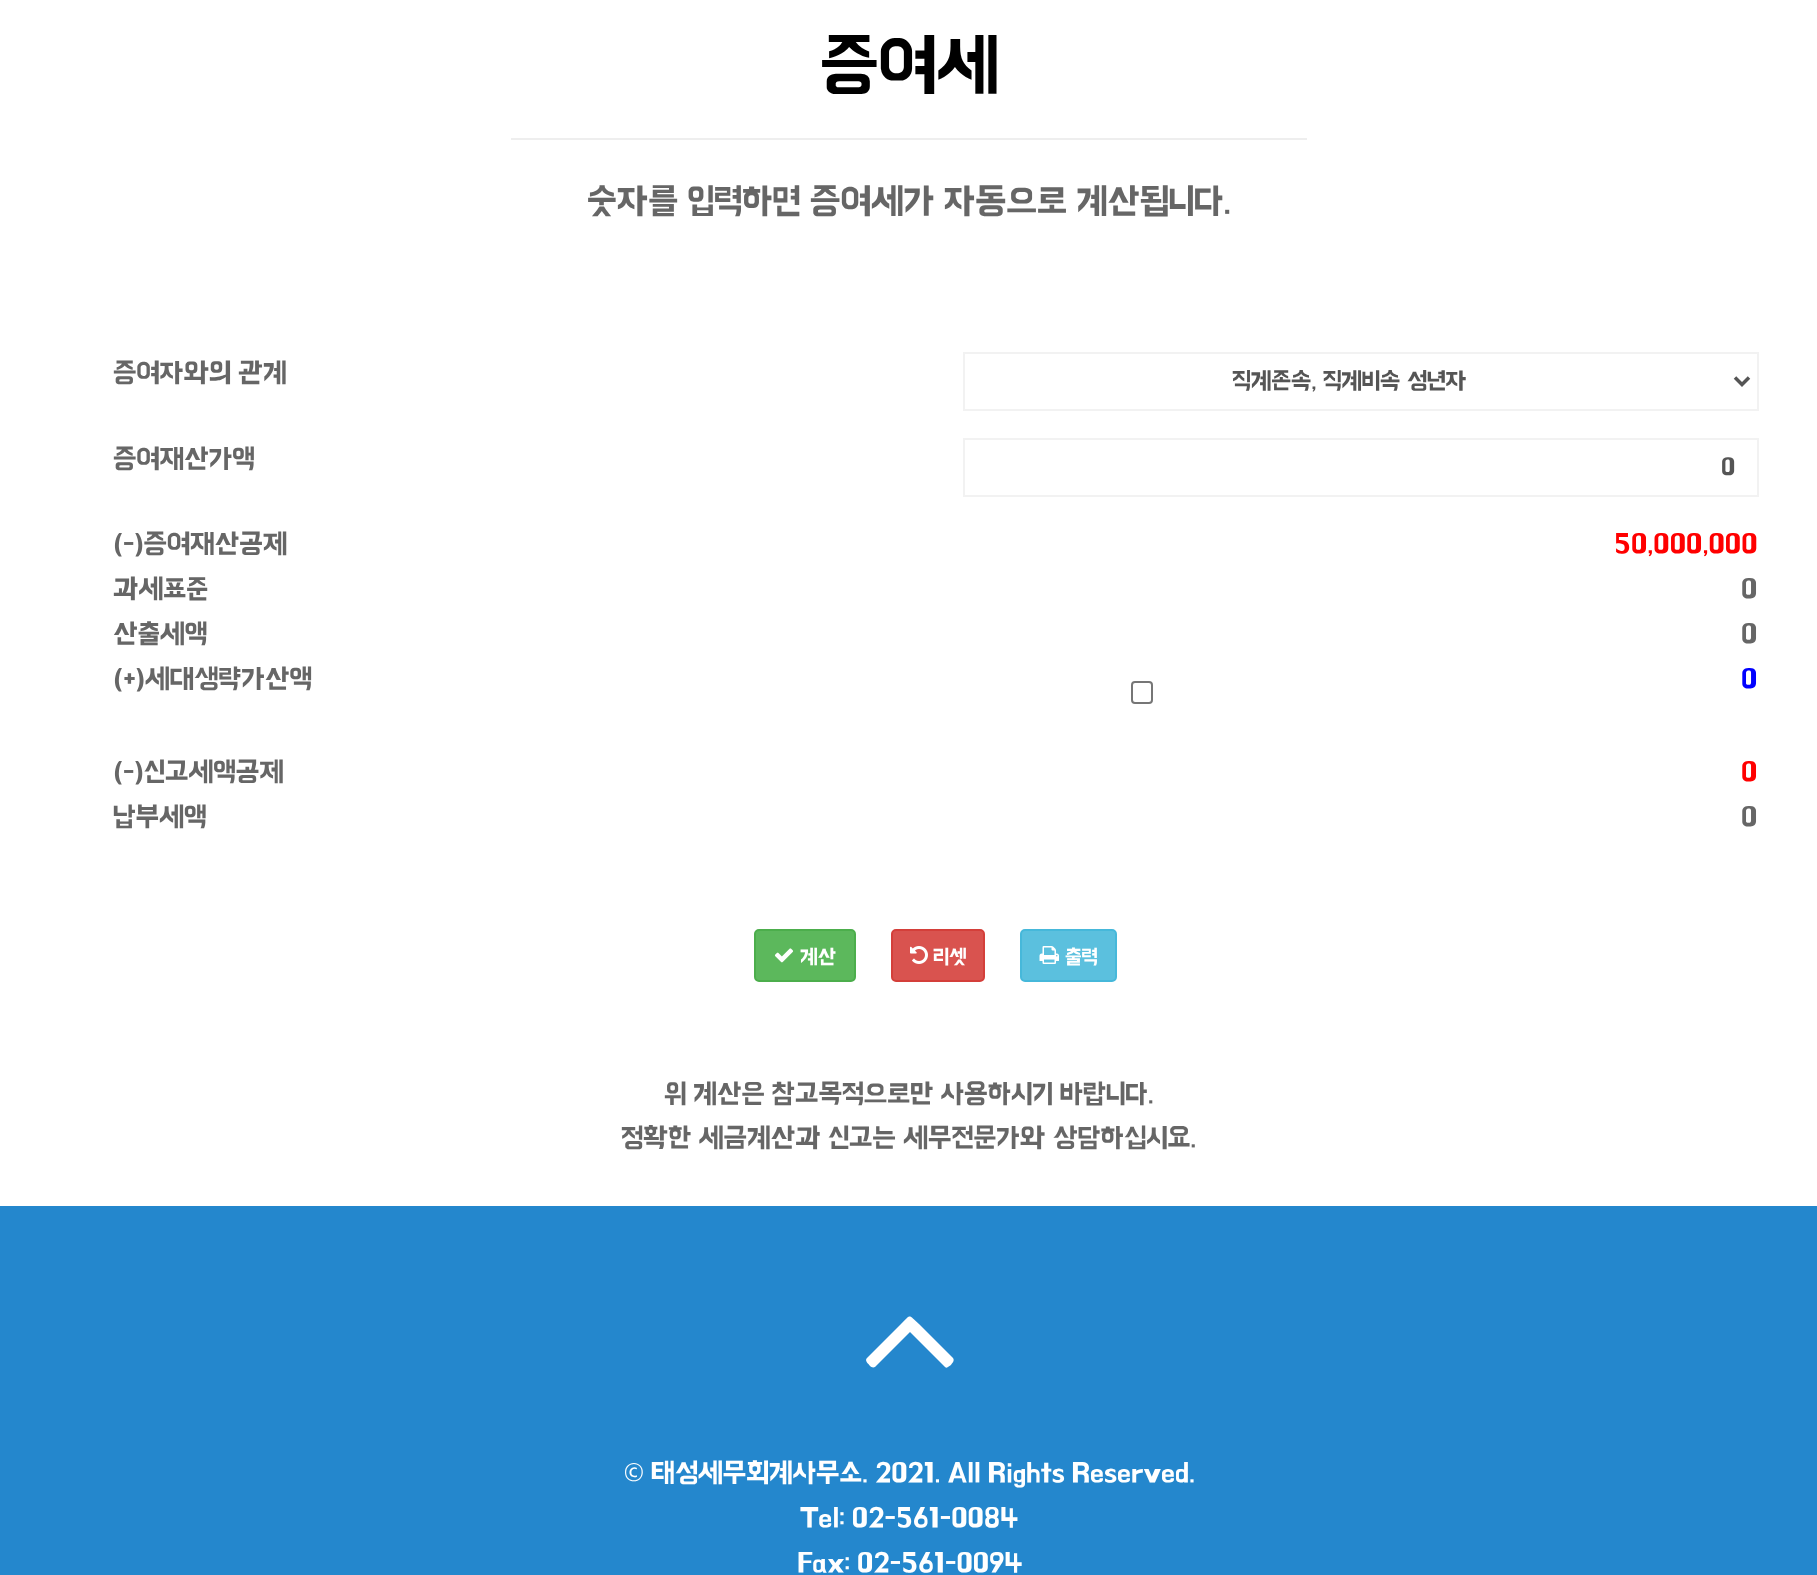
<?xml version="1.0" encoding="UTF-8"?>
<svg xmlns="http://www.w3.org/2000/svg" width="1817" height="1575">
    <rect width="100%" height="100%" fill="#FFFFFF"/>
    <text x="820" y="86" font-family="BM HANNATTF" font-size="70" fill="#000000">증여세</text>
    <rect x="511" y="138" width="796" height="2" fill="#EEEEEE"/>
    <text x="587" y="212" font-family="BM HANNATTF" font-size="36.75" fill="#666666">숫자를 입력하면 증여세가 자동으로 계산됩니다.</text>
    <text x="113" y="381" font-family="BM HANNATTF" font-size="28" fill="#666666">증여자와의 관계</text>
    <rect x="964" y="353" width="794" height="57" fill="none" stroke="#F2F2F2" stroke-width="2"/>
    <path d="M 1735 377.5 L 1742 384.5 L 1749 377.5" fill="none" stroke="#555555" stroke-width="3.5"/>
    <text x="1232" y="388" font-family="BM HANNATTF" font-size="24.5" fill="#555555">직계존속, 직계비속 성년자</text>
    <text x="113" y="467" font-family="BM HANNATTF" font-size="28" fill="#666666">증여재산가액</text>
    <rect x="964" y="439" width="794" height="57" fill="none" stroke="#F2F2F2" stroke-width="2"/>
    <text x="1721" y="474" font-family="BM HANNATTF" font-size="24.5" fill="#555555">0</text>
    <text x="113" y="552" font-family="BM HANNATTF" font-size="28" fill="#666666">(-)증여재산공제</text>
    <text x="1614" y="552" font-family="BM HANNATTF" font-size="28" fill="#FF0000">50,000,000</text>
    <text x="113" y="597" font-family="BM HANNATTF" font-size="28" fill="#666666">과세표준</text>
    <text x="1741" y="597" font-family="BM HANNATTF" font-size="28" fill="#666666">0</text>
    <text x="113" y="642" font-family="BM HANNATTF" font-size="28" fill="#666666">산출세액</text>
    <text x="1741" y="642" font-family="BM HANNATTF" font-size="28" fill="#666666">0</text>
    <text x="113" y="687" font-family="BM HANNATTF" font-size="28" fill="#666666">(+)세대생략가산액</text>
    <text x="1741" y="687" font-family="BM HANNATTF" font-size="28" fill="#0000FF">0</text>
    <rect x="1132" y="682" width="20" height="21" rx="3" fill="none" stroke="#767676" stroke-width="2"/>
    <text x="113" y="780" font-family="BM HANNATTF" font-size="28" fill="#666666">(-)신고세액공제</text>
    <text x="1741" y="780" font-family="BM HANNATTF" font-size="28" fill="#FF0000">0</text>
    <text x="113" y="825" font-family="BM HANNATTF" font-size="28" fill="#666666">납부세액</text>
    <text x="1741" y="825" font-family="BM HANNATTF" font-size="28" fill="#666666">0</text>
    <rect x="755" y="930" width="100" height="51" rx="4" fill="#5CB85C" stroke="#4CAE4C" stroke-width="2"/>
    <image x="774" y="948" width="20" height="15" href="img_01.png"/>
    <text x="800" y="963" font-family="BM HANNATTF" font-size="21" fill="#FFFFFF">계산</text>
    <rect x="892" y="930" width="92" height="51" rx="4" fill="#D9534F" stroke="#D43F3A" stroke-width="2"/>
    <image x="910" y="946" width="18" height="18" href="img_02.png"/>
    <text x="933" y="963" font-family="BM HANNATTF" font-size="21" fill="#FFFFFF">리셋</text>
    <rect x="1021" y="930" width="95" height="51" rx="4" fill="#5BC0DE" stroke="#46B8DA" stroke-width="2"/>
    <image x="1039" y="946" width="20" height="18" href="img_03.png"/>
    <text x="1065" y="963" font-family="BM HANNATTF" font-size="21" fill="#FFFFFF">출력</text>
    <text x="664" y="1102" font-family="BM HANNATTF" font-size="28" fill="#666666">위 계산은 참고목적으로만 사용하시기 바랍니다.</text>
    <text x="621" y="1146" font-family="BM HANNATTF" font-size="28" fill="#666666">정확한 세금계산과 신고는 세무전문가와 상담하십시요.</text>
    <rect x="0" y="1206" width="1817" height="369" fill="#2487CD"/>
    <path d="M 953 1358 C 955 1361 952 1363 951 1365 C 949 1366 947 1369 945 1367 L 910 1332 L 875 1367 C 873 1368 871 1367 870 1366 C 869 1364 864 1361 867 1358 L 901 1324 C 911 1314 908 1314 919 1324 Z" fill="#FFFFFF"/>
    <text x="624" y="1481" font-family="Ek Mukta" font-size="28" fill="#FFFFFF">©</text>
    <text x="651" y="1481" font-family="BM HANNATTF" font-size="28" fill="#FFFFFF">태성세무회계사무소. 2021. All Rights Reserved.</text>
    <text x="800" y="1526" font-family="BM HANNATTF" font-size="28" fill="#FFFFFF">Tel: 02-561-0084</text>
    <text x="797" y="1571" font-family="BM HANNATTF" font-size="28" fill="#FFFFFF">Fax: 02-561-0094</text>
</svg>
